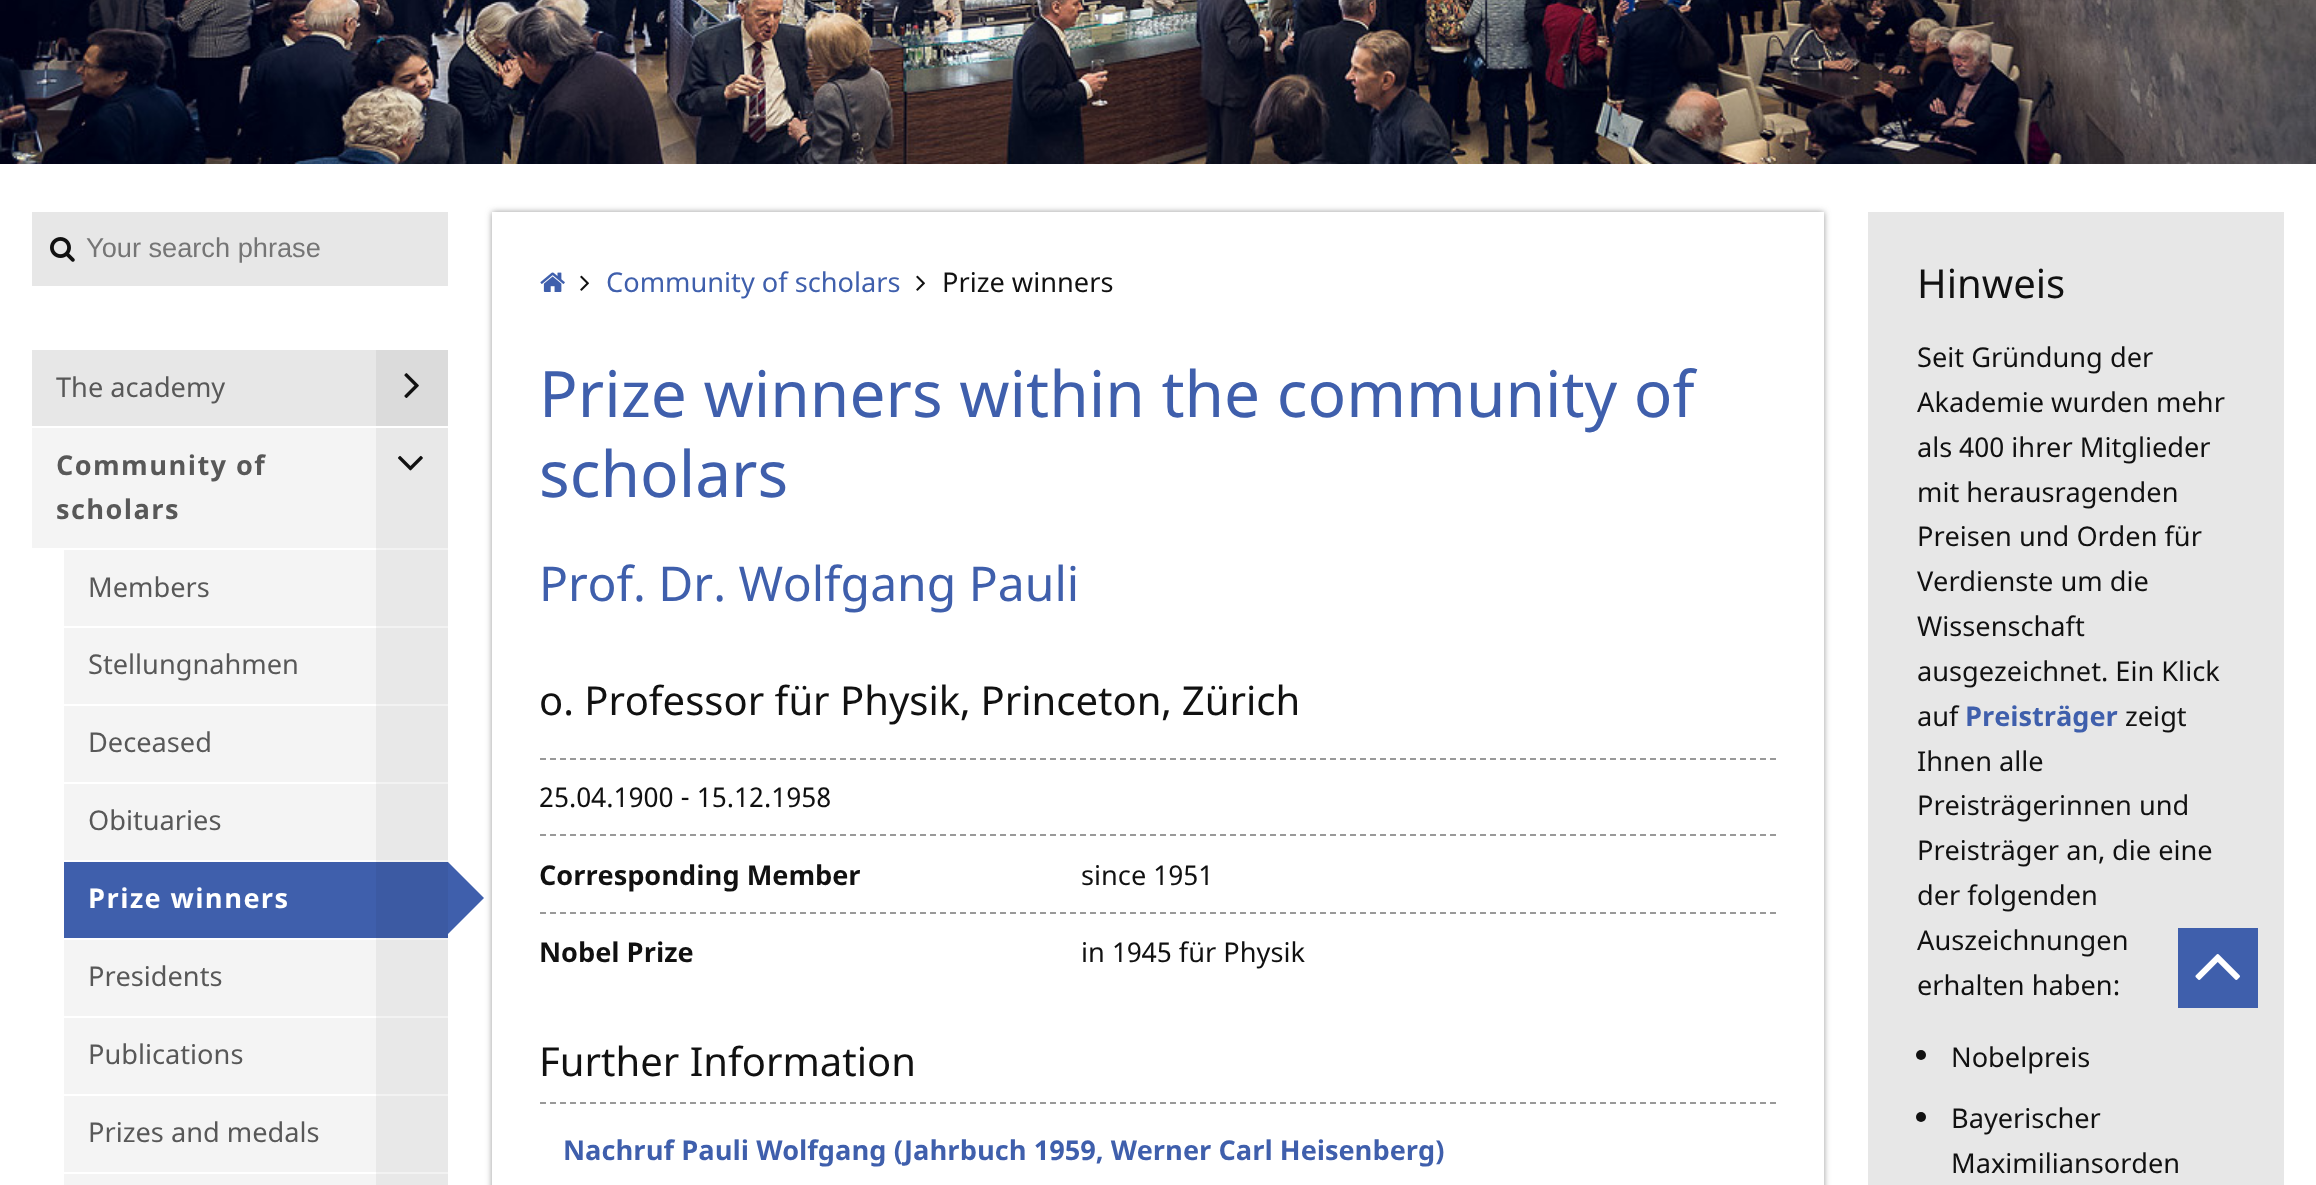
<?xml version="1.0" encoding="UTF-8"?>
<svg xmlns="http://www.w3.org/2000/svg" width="2316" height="1185">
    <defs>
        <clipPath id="clip1"><path d="M 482 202 H 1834 V 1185 H 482 Z M 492 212 H 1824 V 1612 H 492 Z" clip-rule="evenodd"/></clipPath>
        <filter id="blur1" x="-50%" y="-200%" width="200%" height="500%"><feGaussianBlur stdDeviation="3"/></filter>
    </defs>
    <rect width="100%" height="100%" fill="#FFFFFF"/>
    <rect x="376" y="548" width="72" height="626" fill="#F2F2F2"/>
    <image x="0" y="0" width="2316" height="164" href="img_01.png"/>
    <rect x="32" y="212" width="416" height="74" fill="#E7E7E7"/>
    <image x="50" y="237" width="25" height="25" href="img_02.png"/>
    <text x="86" y="257" font-family="Liberation Sans" font-size="27.2" fill="#757575">Your search phrase</text>
    <rect x="32" y="350" width="344" height="76" fill="#E7E7E7"/>
    <text x="56" y="397" font-family="Noto Sans" font-size="27.2" fill="#585858">The academy</text>
    <rect x="376" y="350" width="72" height="76" fill="#DBDBDB"/>
    <image x="404" y="373" width="15" height="25" href="img_03.png"/>
    <rect x="32" y="428" width="344" height="120" fill="#F4F4F4"/>
    <rect x="376" y="428" width="72" height="120" fill="#E8E8E8"/>
    <text font-family="Noto Sans" font-size="27.2" font-weight="700" letter-spacing="1.4" fill="#585858">
        <tspan x="56" y="475">Community of</tspan>
        <tspan x="56" y="519">scholars</tspan>
    </text>
    <image x="398" y="455" width="25" height="16" href="img_04.png"/>
    <rect x="64" y="550" width="312" height="76" fill="#F4F4F4"/>
    <rect x="376" y="550" width="72" height="76" fill="#E8E8E8"/>
    <text x="88" y="597" font-family="Noto Sans" font-size="27.2" fill="#585858">Members</text>
    <rect x="64" y="628" width="312" height="76" fill="#F4F4F4"/>
    <rect x="376" y="628" width="72" height="76" fill="#E8E8E8"/>
    <text x="88" y="674" font-family="Noto Sans" font-size="27.2" fill="#585858">Stellungnahmen</text>
    <rect x="64" y="706" width="312" height="76" fill="#F4F4F4"/>
    <rect x="376" y="706" width="72" height="76" fill="#E8E8E8"/>
    <text x="88" y="752" font-family="Noto Sans" font-size="27.2" fill="#585858">Deceased</text>
    <rect x="64" y="784" width="312" height="76" fill="#F4F4F4"/>
    <rect x="376" y="784" width="72" height="76" fill="#E8E8E8"/>
    <text x="88" y="830" font-family="Noto Sans" font-size="27.2" fill="#585858">Obituaries</text>
    <rect x="64" y="862" width="312" height="76" fill="#3F5FAC"/>
    <rect x="376" y="862" width="72" height="76" fill="#3C5AA3"/>
    <text x="88" y="908" font-family="Noto Sans" font-size="27.2" font-weight="700" letter-spacing="1.4" fill="#FFFFFF">Prize winners</text>
    <g clip-path="url(#clip1)">
        <rect x="492" y="212" width="1332" height="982" fill="#999999" filter="url(#blur1)"/>
    </g>
    <path d="M 448 934 V 862 L 484 898 Z" fill="#3F5FAC"/>
    <rect x="64" y="940" width="312" height="76" fill="#F4F4F4"/>
    <rect x="376" y="940" width="72" height="76" fill="#E8E8E8"/>
    <text x="88" y="986" font-family="Noto Sans" font-size="27.2" fill="#585858">Presidents</text>
    <rect x="64" y="1018" width="312" height="76" fill="#F4F4F4"/>
    <rect x="376" y="1018" width="72" height="76" fill="#E8E8E8"/>
    <text x="88" y="1064" font-family="Noto Sans" font-size="27.2" fill="#585858">Publications</text>
    <rect x="64" y="1096" width="312" height="76" fill="#F4F4F4"/>
    <rect x="376" y="1096" width="72" height="76" fill="#E8E8E8"/>
    <text x="88" y="1142" font-family="Noto Sans" font-size="27.2" fill="#585858">Prizes and medals</text>
    <rect x="64" y="1174" width="312" height="11" fill="#F4F4F4"/>
    <rect x="376" y="1174" width="72" height="11" fill="#E8E8E8"/>
    <image x="540" y="272" width="25" height="20" href="img_05.png"/>
    <image x="580" y="275" width="9" height="16" href="img_06.png"/>
    <text x="606" y="292" font-family="Noto Sans" font-size="27.2" fill="#3F5FAC">Community of scholars</text>
    <image x="916" y="275" width="9" height="16" href="img_06.png"/>
    <text x="942" y="292" font-family="Noto Sans" font-size="27.2" fill="#111111">Prize winners</text>
    <text font-family="Noto Sans" font-size="64" fill="#3F5FAC">
        <tspan x="539" y="417">Prize winners within the community of</tspan>
        <tspan x="539" y="497">scholars</tspan>
    </text>
    <text x="539" y="601" font-family="Noto Sans" font-size="48" fill="#3F5FAC">Prof. Dr. Wolfgang Pauli</text>
    <path d="M 540 759 H 1776" fill="none" stroke="#999999" stroke-width="2" stroke-dasharray="6 4"/>
    <text x="539" y="715" font-family="Noto Sans" font-size="40" fill="#111111">o. Professor für Physik, Princeton, Zürich</text>
    <path d="M 540 835 H 1776" fill="none" stroke="#999999" stroke-width="2" stroke-dasharray="6 4"/>
    <text x="539" y="807" font-family="Noto Sans" font-size="27.2" fill="#111111">25.04.1900 - 15.12.1958</text>
    <path d="M 540 913 H 1776" fill="none" stroke="#999999" stroke-width="2" stroke-dasharray="6 4"/>
    <text x="539" y="885" font-family="Noto Sans" font-size="27.2" font-weight="700" fill="#111111">Corresponding Member</text>
    <text x="1081" y="885" font-family="Noto Sans" font-size="27.2" fill="#111111">since 1951</text>
    <text x="539" y="962" font-family="Noto Sans" font-size="27.2" font-weight="700" fill="#111111">Nobel Prize</text>
    <text x="1081" y="962" font-family="Noto Sans" font-size="27.2" fill="#111111">in 1945 für Physik</text>
    <text x="539" y="1076" font-family="Noto Sans" font-size="40" fill="#111111">Further Information</text>
    <path d="M 540 1103 H 1776" fill="none" stroke="#999999" stroke-width="2" stroke-dasharray="6 4"/>
    <text x="563" y="1160" font-family="Noto Sans" font-size="27.2" font-weight="700" fill="#3F5FAC">Nachruf Pauli Wolfgang (Jahrbuch 1959, Werner Carl Heisenberg)</text>
    <rect x="1868" y="212" width="416" height="973" fill="#E7E7E7"/>
    <text x="1917" y="298" font-family="Noto Sans" font-size="40" fill="#111111">Hinweis</text>
    <text font-family="Noto Sans" font-size="27.2" fill="#111111">
        <tspan x="1917" y="367">Seit Gründung der</tspan>
        <tspan x="1917" y="412">Akademie wurden mehr</tspan>
        <tspan x="1917" y="457">als 400 ihrer Mitglieder</tspan>
        <tspan x="1917" y="502">mit herausragenden</tspan>
        <tspan x="1917" y="546">Preisen und Orden für</tspan>
        <tspan x="1917" y="591">Verdienste um die</tspan>
        <tspan x="1917" y="636">Wissenschaft</tspan>
        <tspan x="1917" y="681">ausgezeichnet. Ein Klick</tspan>
        <tspan x="1917" y="726">auf</tspan>
    </text>
    <text x="1965" y="726" font-family="Noto Sans" font-size="27.2" font-weight="700" fill="#3F5FAC">Preisträger</text>
    <text x="2125" y="726" font-family="Noto Sans" font-size="27.2" fill="#111111">zeigt</text>
    <text font-family="Noto Sans" font-size="27.2" fill="#111111">
        <tspan x="1917" y="771">Ihnen alle</tspan>
        <tspan x="1917" y="815">Preisträgerinnen und</tspan>
        <tspan x="1917" y="860">Preisträger an, die eine</tspan>
        <tspan x="1917" y="905">der folgenden</tspan>
        <tspan x="1917" y="950">Auszeichnungen</tspan>
        <tspan x="1917" y="995">erhalten haben:</tspan>
    </text>
    <circle cx="1921" cy="1055" r="5" fill="#111111"/>
    <text x="1951" y="1067" font-family="Noto Sans" font-size="27.2" fill="#111111">Nobelpreis</text>
    <circle cx="1921" cy="1117" r="5" fill="#111111"/>
    <text font-family="Noto Sans" font-size="27.2" fill="#111111">
        <tspan x="1951" y="1128">Bayerischer</tspan>
        <tspan x="1951" y="1173">Maximiliansorden</tspan>
    </text>
    <rect x="2178" y="928" width="80" height="80" fill="#3F5FAC"/>
    <image x="2195" y="954" width="45" height="26" href="img_07.png"/>
</svg>
